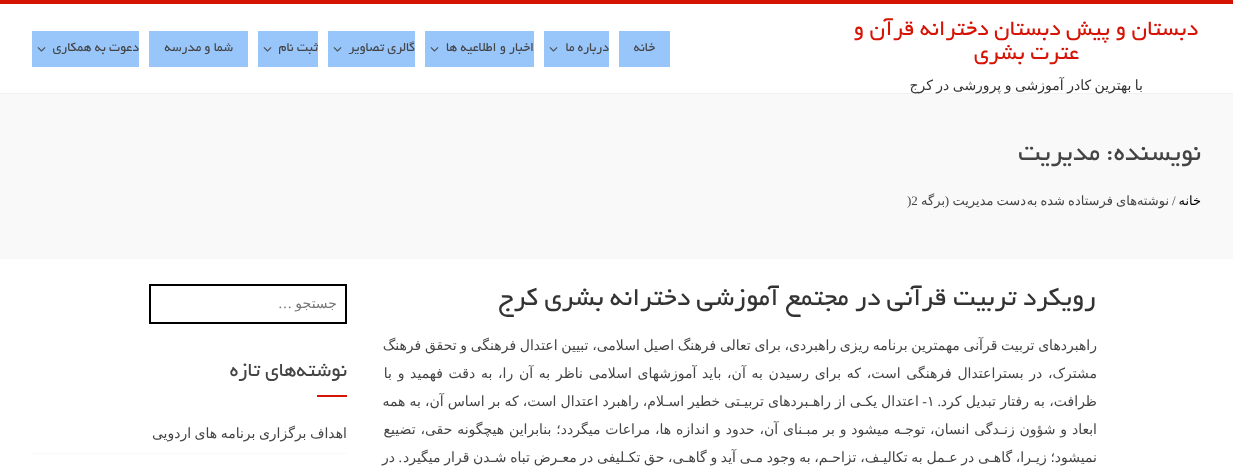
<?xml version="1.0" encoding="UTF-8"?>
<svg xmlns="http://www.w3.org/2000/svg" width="1233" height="475">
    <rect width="100%" height="100%" fill="#FFFFFF"/>
    <rect x="0" y="0" width="1233" height="4" fill="#D61406"/>
    <rect x="0" y="93" width="1233" height="1" fill="#F1F1F1"/>
    <text x="1198" y="35" font-family="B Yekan" font-size="24" direction="rtl" fill="#D61406">دبستان و پیش دبستان دخترانه قرآن و</text>
    <text x="1079" y="59" font-family="B Yekan" font-size="24" direction="rtl" fill="#D61406">عترت بشری</text>
    <text x="1143" y="90" word-spacing="-1" font-family="DejaVu Sans" font-size="14" direction="rtl" fill="#333333">با بهترین کادر آموزشی و پرورشی در کرج</text>
    <rect x="619" y="31" width="51" height="36" fill="#98C6FB"/>
    <text x="655" y="51" font-family="B Yekan" font-size="14" direction="rtl" fill="#444444">خانه</text>
    <rect x="544" y="31" width="65" height="36" fill="#98C6FB"/>
    <text x="609" y="51" font-family="B Yekan" font-size="14" direction="rtl" fill="#444444">درباره ما</text>
    <image x="549" y="47" width="9" height="5" href="img_01.png"/>
    <rect x="425" y="31" width="109" height="36" fill="#98C6FB"/>
    <text x="534" y="51" font-family="B Yekan" font-size="14" direction="rtl" fill="#444444">اخبار و اطلاعیه ها</text>
    <image x="430" y="47" width="9" height="5" href="img_01.png"/>
    <rect x="328" y="31" width="87" height="36" fill="#98C6FB"/>
    <text x="415" y="51" font-family="B Yekan" font-size="14" direction="rtl" fill="#444444">گالری تصاویر</text>
    <image x="333" y="47" width="9" height="5" href="img_01.png"/>
    <rect x="258" y="31" width="60" height="36" fill="#98C6FB"/>
    <text x="318" y="51" font-family="B Yekan" font-size="14" direction="rtl" fill="#444444">ثبت نام</text>
    <image x="263" y="47" width="9" height="5" href="img_01.png"/>
    <rect x="149" y="31" width="99" height="36" fill="#98C6FB"/>
    <text x="233" y="51" font-family="B Yekan" font-size="14" direction="rtl" fill="#444444">شما و مدرسه</text>
    <rect x="32" y="31" width="107" height="36" fill="#98C6FB"/>
    <text x="139" y="51" font-family="B Yekan" font-size="14" direction="rtl" fill="#444444">دعوت به همکاری</text>
    <image x="37" y="47" width="9" height="5" href="img_01.png"/>
    <rect x="0" y="94" width="1233" height="165" fill="#F9F9F9"/>
    <text x="1201" y="160" font-family="B Yekan" font-size="28" direction="rtl" fill="#444444">نویسنده:</text>
    <text x="1100" y="160" font-family="B Yekan" font-size="28" direction="rtl" fill="#444444">مدیریت</text>
    <text x="1201" y="205" font-family="DejaVu Sans" font-size="13" direction="rtl" fill="#000000">خانه</text>
    <text x="1172" y="205" font-family="Liberation Serif" font-size="13" fill="#444444">/</text>
    <text x="1026" y="205" word-spacing="-1" font-family="DejaVu Sans" font-size="13" direction="rtl" fill="#444444">دست مدیریت</text>
    <text x="1137" y="205" word-spacing="-1" font-family="DejaVu Sans" font-size="13" direction="rtl" fill="#444444">های فرستاده شده به</text>
    <text x="1169" y="205" font-family="DejaVu Sans" font-size="13" direction="rtl" fill="#444444">نوشته</text>
    <text x="949" y="205" font-family="Liberation Serif" font-size="13" direction="rtl" fill="#444444">(</text>
    <text x="945" y="205" font-family="DejaVu Sans" font-size="13" direction="rtl" fill="#444444">برگه</text>
    <text x="907" y="205" font-family="Liberation Serif" font-size="13" fill="#444444">)2</text>
    <text x="1096" y="305" font-family="B Yekan" font-size="28" direction="rtl" fill="#333333">رویکرد تربیت قرآنی در مجتمع آموزشی دخترانه بشری کرج</text>
    <text x="1097" y="350" word-spacing="-0.8" font-family="DejaVu Sans" font-size="14" direction="rtl" fill="#444444">راهبردهای تربیت قرآنی مهمترین برنامه ریزی راهبردی، برای تعالی فرهنگ اصیل اسلامی، تبیین اعتدال فرهنگی و تحقق فرهنگ</text>
    <text x="1097" y="378" word-spacing="1.25" font-family="DejaVu Sans" font-size="14" direction="rtl" fill="#444444">مشترک، در بستراعتدال فرهنگی است، که برای رسیدن به آن، باید آموزشهای اسلامی ناظر به آن را، به دقت فهمید و با</text>
    <text x="1097" y="406" font-family="DejaVu Sans" font-size="14" direction="rtl" fill="#444444">ظرافت، به رفتار تبدیل کرد</text>
    <text x="927" y="406" font-family="DejaVu Sans" font-size="14" fill="#444444">۱</text>
    <text x="919" y="406" word-spacing="-0.4" font-family="DejaVu Sans" font-size="14" direction="rtl" fill="#444444">اعتدال یکـی از راهـبردهای تربیـتی خطیر اسـلام، راهبرد اعتدال است، که بر اساس آن، به همه</text>
    <text x="927" y="406" font-family="Liberation Serif" font-size="14" direction="rtl" fill="#444444">-</text>
    <text x="941" y="406" font-family="Liberation Serif" font-size="14" direction="rtl" fill="#444444">.</text>
    <text x="1097" y="434" word-spacing="0.4" font-family="DejaVu Sans" font-size="14" direction="rtl" fill="#444444">ابعاد و شؤون زنـدگی انسان، توجـه میشود و بر مبـنای آن، حدود و اندازه ها، مراعات میگردد؛ بنابراین هیچگونه حقی، تضییع</text>
    <text x="1097" y="462" word-spacing="-0.75" font-family="DejaVu Sans" font-size="14" direction="rtl" fill="#444444">نمیشود؛ زیـرا، گاهـی در عـمل به تکالیـف، تزاحـم، به وجود مـی آید و گاهـی، حق تکـلیفی در معـرض تباه شـدن قرار میگیرد</text>
    <text x="402" y="462" font-family="Liberation Serif" font-size="14" direction="rtl" fill="#444444">.</text>
    <text x="395" y="462" font-family="DejaVu Sans" font-size="14" direction="rtl" fill="#444444">در</text>
    <rect x="150" y="285" width="196" height="38" fill="none" stroke="#000000" stroke-width="2"/>
    <text x="337" y="308" font-family="DejaVu Sans" font-size="14" direction="rtl" fill="#757575">جستجو</text>
    <text x="292" y="308" font-family="Liberation Serif" font-size="14" direction="rtl" fill="#757575">…</text>
    <text x="347" y="376" font-family="B Yekan" font-size="22" direction="rtl" fill="#444444">نوشته‌های تازه</text>
    <rect x="317" y="395" width="30" height="2" fill="#D61406"/>
    <rect x="32" y="453" width="315" height="1" fill="#F9F9F9"/>
    <text x="347" y="438" word-spacing="-1" font-family="DejaVu Sans" font-size="14" direction="rtl" fill="#444444">اهداف برگزاری برنامه های اردویی</text>
</svg>
